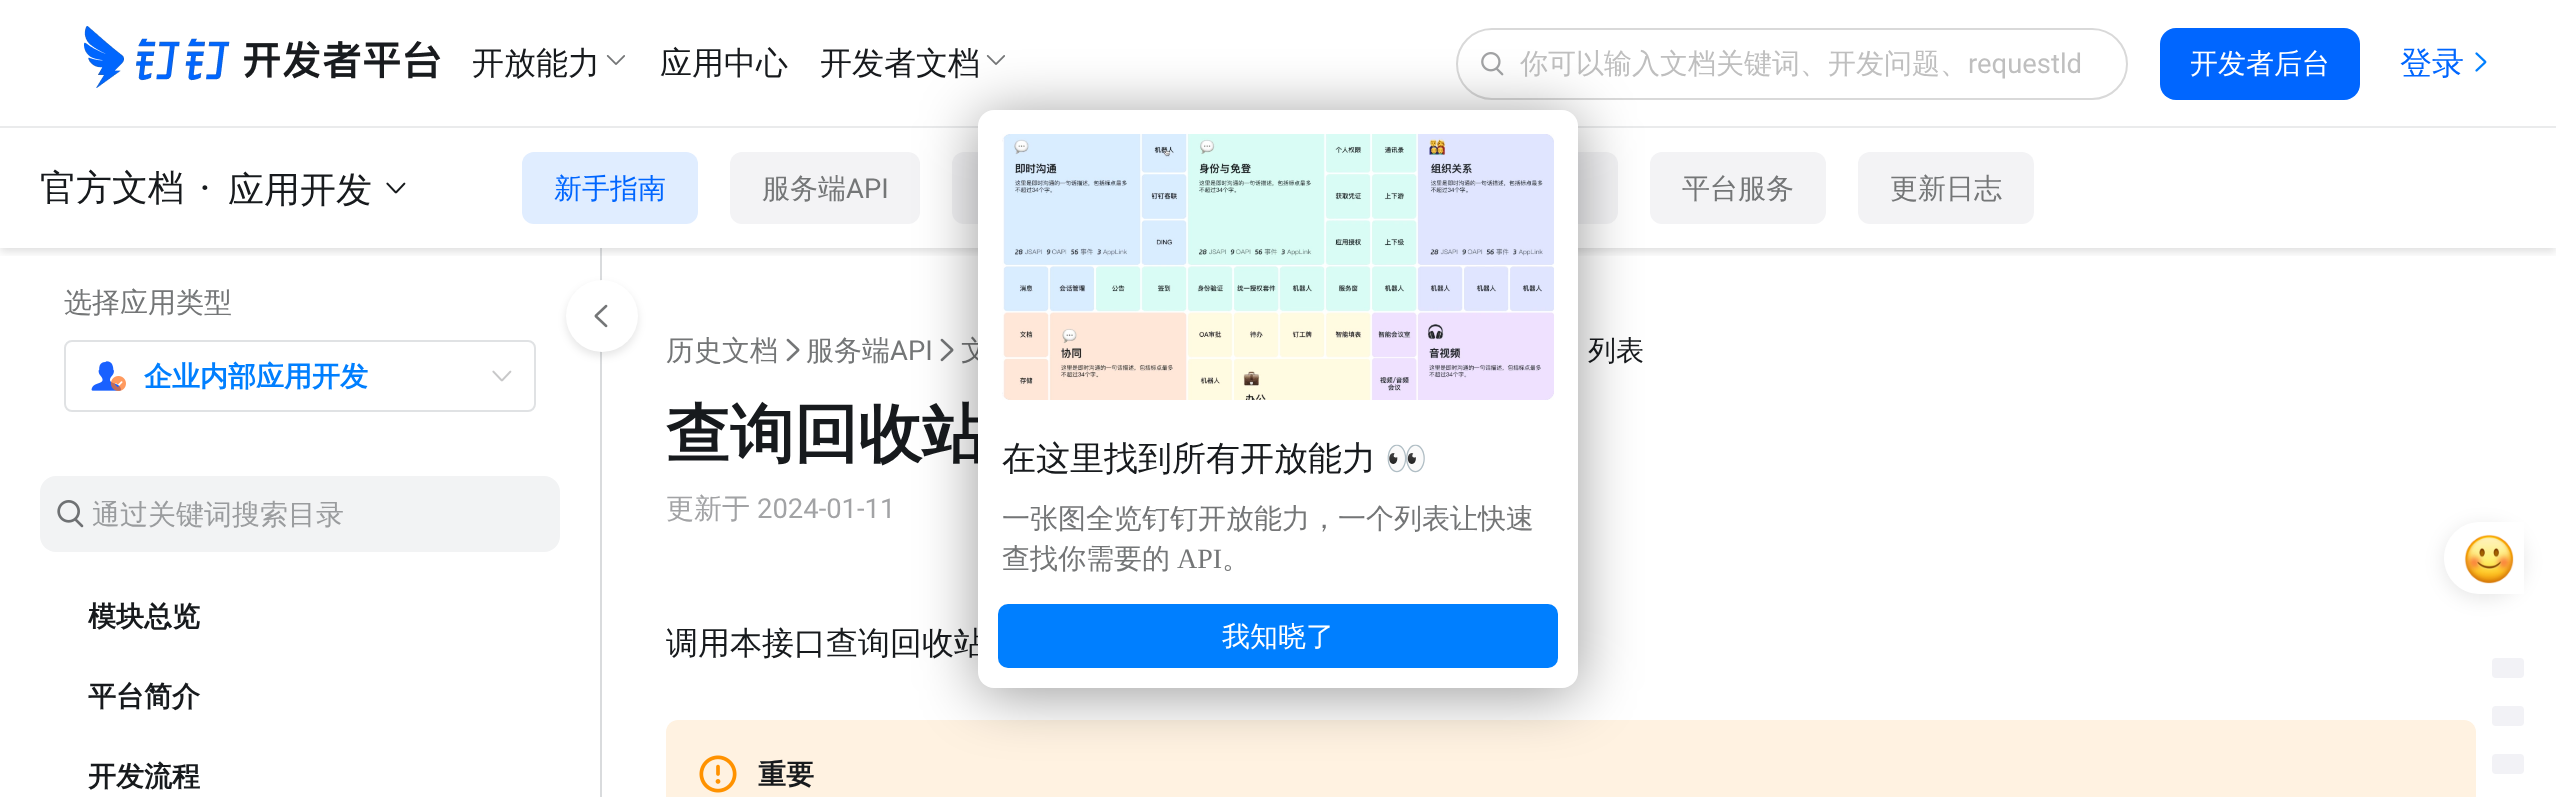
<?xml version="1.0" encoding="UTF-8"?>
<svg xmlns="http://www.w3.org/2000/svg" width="2556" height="797">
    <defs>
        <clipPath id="clip1"><rect x="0" y="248" width="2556" height="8"/></clipPath>
        <filter id="blur1" x="-50%" y="-200%" width="200%" height="500%"><feGaussianBlur stdDeviation="4"/></filter>
        <filter id="blur2" x="-50%" y="-200%" width="200%" height="500%"><feGaussianBlur stdDeviation="10"/></filter>
        <filter id="blur3" x="-50%" y="-200%" width="200%" height="500%"><feGaussianBlur stdDeviation="30"/></filter>
    </defs>
    <rect width="100%" height="100%" fill="#FFFFFF"/>
    <rect x="600" y="248" width="2" height="549" fill="#F6F6F6"/>
    <g clip-path="url(#clip1)">
        <rect x="0" y="132" width="2556" height="120" fill="#000000" fill-opacity="0.12" filter="url(#blur1)"/>
    </g>
    <rect x="0" y="126" width="2556" height="2" fill="#EAEBEC"/>
    <image x="84" y="26" width="357" height="62" href="img_01.png"/>
    <text x="472" y="74" font-family="WenQuanYi Zen Hei" font-size="32" font-weight="500" fill="#171A1D">开放能力</text>
    <image x="606" y="55" width="19" height="10" href="img_02.png"/>
    <text x="660" y="74" font-family="WenQuanYi Zen Hei" font-size="32" font-weight="500" fill="#171A1D">应用中心</text>
    <text x="820" y="74" font-family="WenQuanYi Zen Hei" font-size="32" font-weight="500" fill="#171A1D">开发者文档</text>
    <image x="986" y="55" width="19" height="10" href="img_02.png"/>
    <rect x="1457" y="29" width="670" height="70" rx="35" fill="none" stroke="#D9D9D9" stroke-width="2"/>
    <image x="1481" y="52" width="23" height="24" href="img_03.png"/>
    <text x="1520" y="73" font-family="WenQuanYi Zen Hei" font-size="28" font-weight="500" fill="#BFBFBF">你可以输入文档关键词、开发问题、</text>
    <text x="1968" y="73" font-family="Roboto" font-size="28" fill="#BFBFBF">requestld</text>
    <rect x="2160" y="28" width="200" height="72" rx="16" fill="#0066FF"/>
    <text x="2190" y="73" font-family="WenQuanYi Zen Hei" font-size="28" font-weight="500" fill="#FFFFFF">开发者后台</text>
    <text x="2400" y="74" font-family="WenQuanYi Zen Hei" font-size="32" font-weight="500" fill="#0066FF">登录</text>
    <image x="2475" y="52" width="12" height="20" href="img_04.png"/>
    <text x="40" y="200" font-family="WenQuanYi Zen Hei" font-size="36" font-weight="500" fill="#171A1D">官方文档</text>
    <text x="200" y="200" font-family="Roboto" font-size="36" font-weight="500" fill="#171A1D">·</text>
    <text x="228" y="202" font-family="WenQuanYi Zen Hei" font-size="36" font-weight="500" fill="#171A1D">应用开发</text>
    <image x="386" y="182" width="20" height="12" href="img_05.png"/>
    <rect x="522" y="152" width="176" height="72" rx="12" fill="#E0EDFF"/>
    <text x="554" y="198" font-family="WenQuanYi Zen Hei" font-size="28" font-weight="500" fill="#0066FF">新手指南</text>
    <rect x="730" y="152" width="190" height="72" rx="12" fill="#F3F3F5"/>
    <text x="762" y="198" font-family="WenQuanYi Zen Hei" font-size="28" font-weight="500" fill="#747677">服务端</text>
    <text x="846" y="198" font-family="Roboto" font-size="28" fill="#747677">API</text>
    <rect x="952" y="152" width="222" height="72" rx="12" fill="#F3F3F5"/>
    <rect x="1414" y="152" width="204" height="72" rx="12" fill="#F3F3F5"/>
    <rect x="1650" y="152" width="176" height="72" rx="12" fill="#F3F3F5"/>
    <text x="1682" y="198" font-family="WenQuanYi Zen Hei" font-size="28" font-weight="500" fill="#747677">平台服务</text>
    <rect x="1858" y="152" width="176" height="72" rx="12" fill="#F3F3F5"/>
    <text x="1890" y="198" font-family="WenQuanYi Zen Hei" font-size="28" font-weight="500" fill="#747677">更新日志</text>
    <text x="64" y="312" font-family="WenQuanYi Zen Hei" font-size="28" font-weight="500" fill="#747677">选择应用类型</text>
    <rect x="65" y="341" width="470" height="70" rx="7" fill="none" stroke="#E0E2E4" stroke-width="2"/>
    <image x="91" y="361" width="35" height="30" href="img_06.png"/>
    <text x="144" y="386" font-family="WenQuanYi Zen Hei" font-size="28" font-weight="700" fill="#007FFF">企业内部应用开发</text>
    <image x="492" y="370" width="20" height="12" href="img_07.png"/>
    <rect x="40" y="476" width="520" height="76" rx="16" fill="#F2F3F4"/>
    <image x="57" y="500" width="27" height="28" href="img_08.png"/>
    <text x="92" y="524" font-family="WenQuanYi Zen Hei" font-size="28" font-weight="500" fill="#9A9C9E">通过关键词搜索目录</text>
    <text x="88" y="626" font-family="WenQuanYi Zen Hei" font-size="28" font-weight="700" fill="#171A1D">模块总览</text>
    <text x="88" y="706" font-family="WenQuanYi Zen Hei" font-size="28" font-weight="700" fill="#171A1D">平台简介</text>
    <text x="88" y="786" font-family="WenQuanYi Zen Hei" font-size="28" font-weight="700" fill="#171A1D">开发流程</text>
    <rect x="600" y="248" width="2" height="549" fill="#7E868E" fill-opacity="0.24"/>
    <rect x="566" y="284" width="72" height="72" rx="36" fill="#000000" fill-opacity="0.1" filter="url(#blur1)"/>
    <circle cx="602" cy="316" r="36" fill="#FFFFFF"/>
    <image x="594" y="304" width="14" height="24" href="img_09.png"/>
    <text x="666" y="360" font-family="WenQuanYi Zen Hei" font-size="28" font-weight="500" fill="#747677">历史文档</text>
    <image x="786" y="338" width="14" height="24" href="img_10.png"/>
    <text x="806" y="360" font-family="WenQuanYi Zen Hei" font-size="28" font-weight="500" fill="#747677">服务端</text>
    <text x="890" y="360" font-family="Roboto" font-size="28" fill="#747677">API</text>
    <image x="940" y="338" width="14" height="24" href="img_10.png"/>
    <text x="961" y="360" font-family="WenQuanYi Zen Hei" font-size="28" font-weight="500" fill="#747677">文</text>
    <text x="1588" y="360" font-family="WenQuanYi Zen Hei" font-size="28" font-weight="500" fill="#171A1D">列表</text>
    <text x="666" y="456" font-family="WenQuanYi Zen Hei" font-size="64" font-weight="700" fill="#171A1D">查询回收站</text>
    <text x="666" y="518" font-family="WenQuanYi Zen Hei" font-size="28" font-weight="500" fill="#A2A3A5">更新于</text>
    <text x="757" y="518" font-family="Roboto" font-size="28" fill="#A2A3A5">2024-01-11</text>
    <text x="666" y="654" font-family="WenQuanYi Zen Hei" font-size="32" font-weight="500" fill="#171A1D">调用本接口查询回收站</text>
    <path d="M 678 720 H 2464 C 2470.5 720 2476 725.5 2476 732 V 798 H 666 V 732 C 666 725.5 671.5 720 678 720 Z" fill="#FFF2E1"/>
    <image x="699" y="755" width="38" height="38" href="img_11.png"/>
    <text x="758" y="784" font-family="WenQuanYi Zen Hei" font-size="28" font-weight="700" fill="#171A1D">重要</text>
    <rect x="2444" y="526" width="80" height="72" rx="36" fill="#000000" fill-opacity="0.1" filter="url(#blur2)"/>
    <path d="M 2480 522 H 2524 V 594 H 2480 C 2460 594 2444 578 2444 558 C 2444 538 2460 522 2480 522 Z" fill="#FFFFFF"/>
    <image x="2464" y="534" width="50" height="50" href="img_12.png"/>
    <rect x="2492" y="658" width="32" height="20" rx="4" fill="#F2F2F6"/>
    <rect x="2492" y="706" width="32" height="20" rx="4" fill="#F2F2F6"/>
    <rect x="2492" y="754" width="32" height="20" rx="4" fill="#F2F2F6"/>
    <rect x="978" y="116" width="600" height="578" rx="16" fill="#000000" fill-opacity="0.4" filter="url(#blur3)"/>
    <rect x="978" y="110" width="600" height="578" rx="16" fill="#FFFFFF"/>
    <image x="1002" y="134" width="552" height="266" href="img_13.png"/>
    <text x="1002" y="470" font-family="WenQuanYi Zen Hei" font-size="34" font-weight="500" fill="#171A1D">在这里找到所有开放能力</text>
    <text x="1385" y="470" font-family="Noto Color Emoji" font-size="34" fill="#171A1D">👀</text>
    <text font-family="WenQuanYi Zen Hei" font-size="28" font-weight="500" fill="#747677">
        <tspan x="1002" y="528">一张图全览钉钉开放能力，一个列表让快速</tspan>
        <tspan x="1002" y="568">查找你需要的</tspan>
    </text>
    <text x="1177" y="568" font-family="Liberation Serif" font-size="28" fill="#747677">API</text>
    <text x="1222" y="568" font-family="WenQuanYi Zen Hei" font-size="28" font-weight="500" fill="#747677">。</text>
    <rect x="998" y="604" width="560" height="64" rx="10" fill="#007FFF"/>
    <text x="1222" y="646" font-family="WenQuanYi Zen Hei" font-size="28" font-weight="500" fill="#FFFFFF">我知晓了</text>
</svg>
